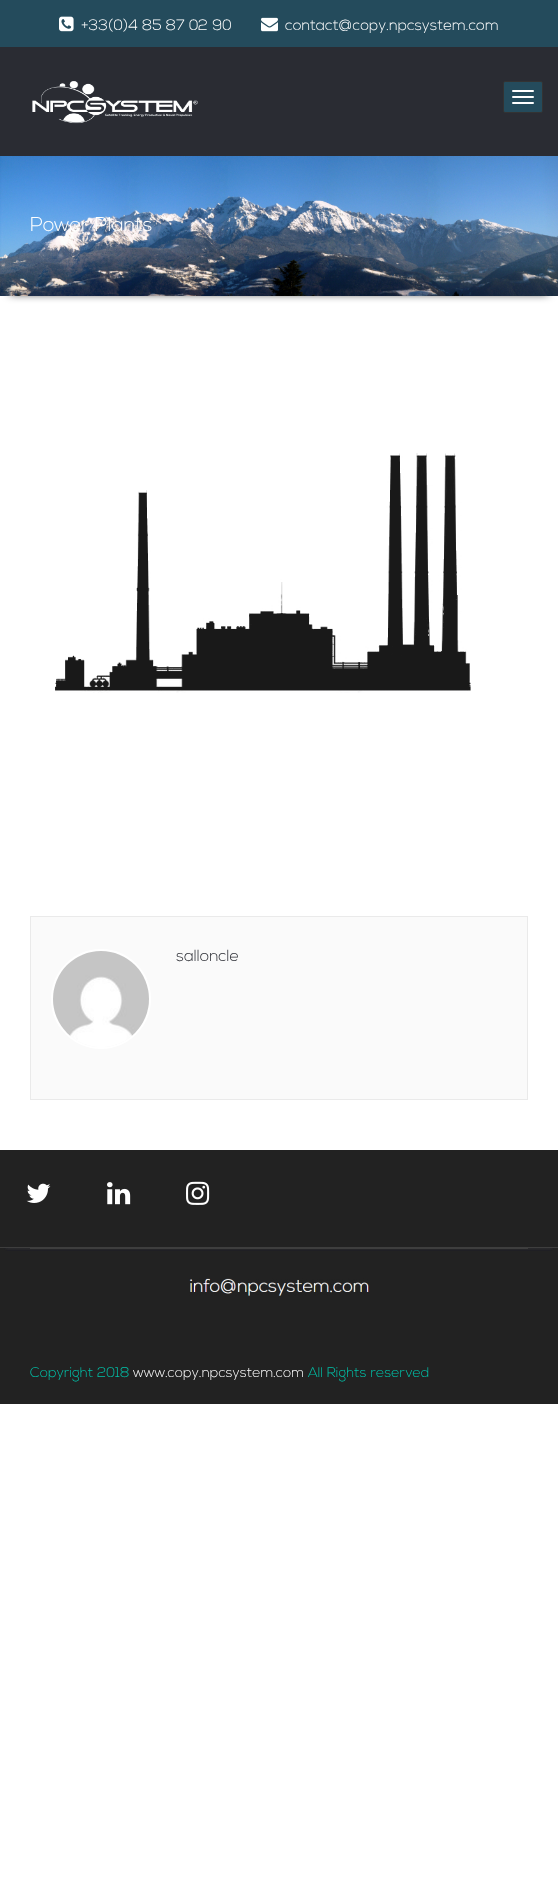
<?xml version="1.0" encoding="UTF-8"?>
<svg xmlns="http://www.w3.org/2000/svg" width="558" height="1900">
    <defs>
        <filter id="blur1" x="-50%" y="-200%" width="200%" height="500%"><feGaussianBlur stdDeviation="5"/></filter>
        <clipPath id="clip1"><rect x="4" y="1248" width="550" height="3"/></clipPath>
        <filter id="blur2" x="-50%" y="-200%" width="200%" height="500%"><feGaussianBlur stdDeviation="1"/></filter>
    </defs>
    <rect width="100%" height="100%" fill="#FFFFFF"/>
    <rect x="0" y="0" width="558" height="47" fill="#244B5C"/>
    <image x="59" y="16" width="15" height="16" href="img_01.png"/>
    <text x="81" y="30" font-family="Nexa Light" font-size="15" font-weight="300" fill="#FFFFFF">+33(0)4 85 87 02 90</text>
    <image x="261" y="17" width="17" height="15" href="img_02.png"/>
    <text x="285" y="30" font-family="Nexa Light" font-size="15" font-weight="300" fill="#FFFFFF">contact@copy.npcsystem.com</text>
    <rect x="0" y="47" width="558" height="109" fill="#2A2C33"/>
    <image x="32" y="81" width="166" height="43" href="img_03.png"/>
    <rect x="503.5" y="81.5" width="39" height="31" rx="1.5" fill="#244B5C" stroke="#333333"/>
    <rect x="512" y="90" width="22" height="2" rx="1" fill="#FFFFFF"/>
    <rect x="512" y="96" width="22" height="2" rx="1" fill="#FFFFFF"/>
    <rect x="512" y="102" width="22" height="2" rx="1" fill="#FFFFFF"/>
    <rect x="10" y="173" width="538" height="120" fill="#000000" filter="url(#blur1)"/>
    <image x="0" y="156" width="558" height="140" href="img_04.png"/>
    <text x="30" y="231" font-family="Nexa Light" font-size="20" font-weight="300" fill="#FFFFFF">Power Plants</text>
    <image x="55" y="453" width="416" height="240" href="img_05.png"/>
    <rect x="30.5" y="916.5" width="497" height="183" fill="#FAFAFA" stroke="#EAEAEA"/>
    <circle cx="101" cy="999" r="49" fill="none" stroke="#FFFFFF" stroke-width="2"/>
    <image x="53" y="951" width="96" height="96" href="img_06.png"/>
    <text x="176" y="961" font-family="Nexa Light" font-size="16" font-weight="300" fill="#2A2C33">salloncle</text>
    <rect x="0" y="1150" width="558" height="254" fill="#222222"/>
    <g clip-path="url(#clip1)">
        <rect x="6" y="1163" width="546" height="86" fill="#2A2C33" filter="url(#blur2)"/>
    </g>
    <rect x="0" y="1247" width="558" height="1" fill="#3E3E3E"/>
    <image x="26" y="1183" width="25" height="20" href="img_07.png"/>
    <image x="107" y="1182" width="24" height="23" href="img_08.png"/>
    <image x="186" y="1181" width="24" height="24" href="img_09.png"/>
    <rect x="30" y="1248" width="498" height="1" fill="#3E3E3E"/>
    <image x="189" y="1278" width="180" height="18" href="img_10.png"/>
    <text x="30" y="1377" font-family="Nexa Light" font-size="14" font-weight="300" fill="#00C2A9">Copyright 2018</text>
    <text x="133" y="1377" font-family="Nexa Light" font-size="14" font-weight="300" fill="#FFFFFF">www.copy.npcsystem.com</text>
    <text x="308" y="1377" font-family="Nexa Light" font-size="14" font-weight="300" fill="#00C2A9">All Rights reserved</text>
</svg>
